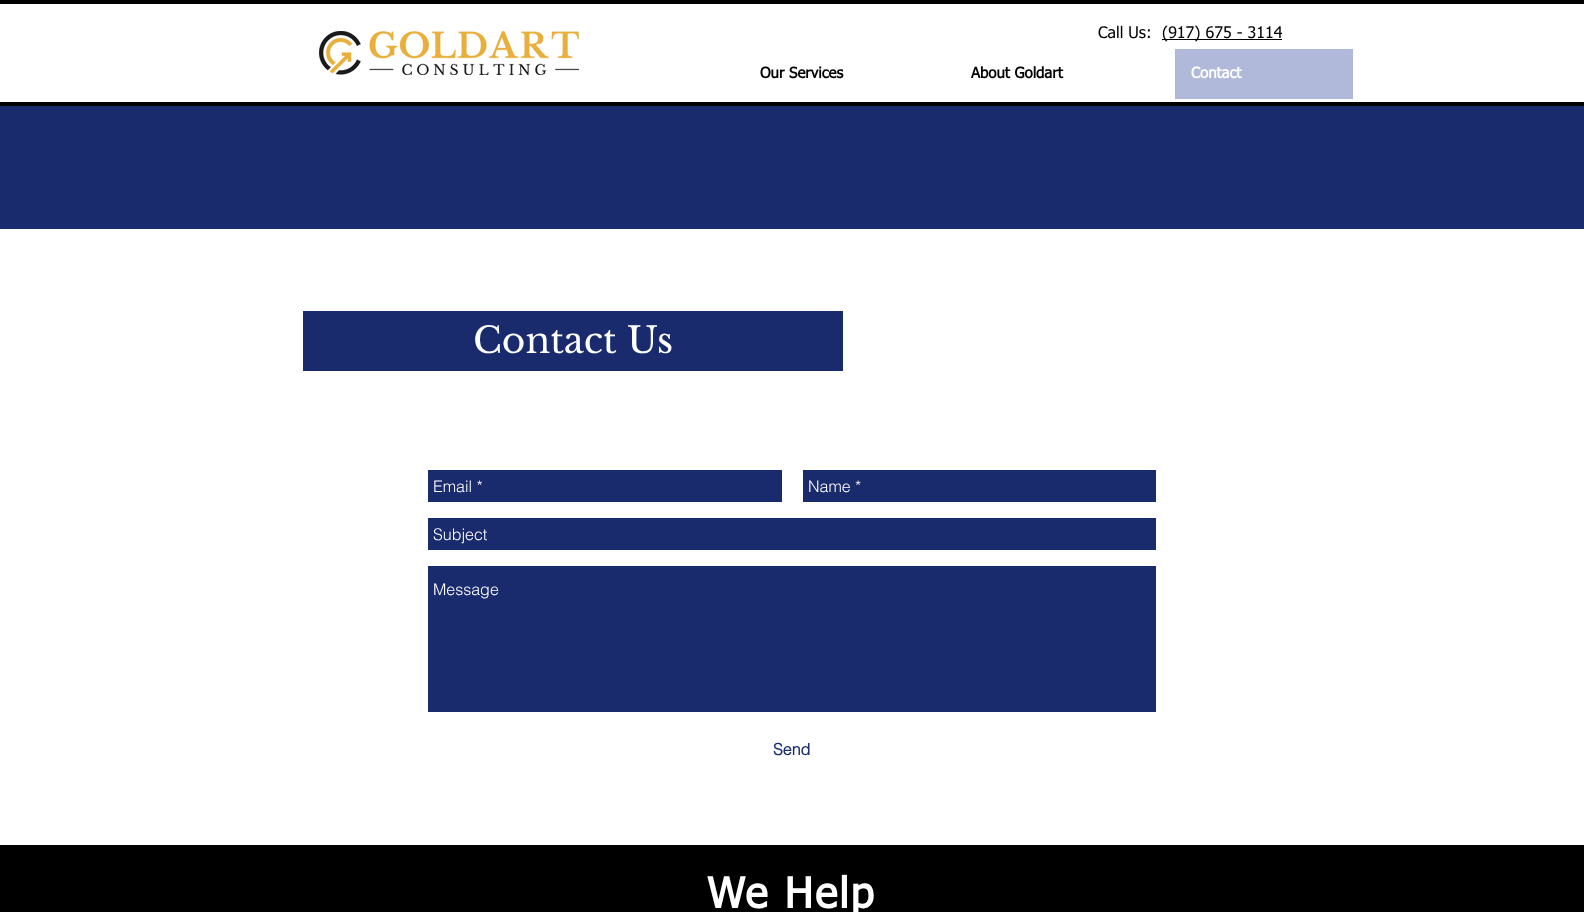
<?xml version="1.0" encoding="UTF-8"?>
<svg xmlns="http://www.w3.org/2000/svg" width="1584" height="912">
    <rect width="100%" height="100%" fill="#FFFFFF"/>
    <rect x="0" y="0" width="1584" height="4" fill="#000000"/>
    <rect x="0" y="102" width="1584" height="4" fill="#000000"/>
    <image x="319" y="31" width="260" height="44" href="img_01.png"/>
    <text x="1098" y="38" font-family="tahoma" font-size="16" fill="#000000">Call Us:</text>
    <rect x="1162" y="39" width="120" height="1" fill="#000000"/>
    <text x="1162" y="38" font-family="tahoma" font-size="16" fill="#000000">(917) 675 - 3114</text>
    <text x="760" y="78" font-family="tahoma" font-size="15" font-weight="700" fill="#000000">Our Services</text>
    <text x="971" y="78" font-family="tahoma" font-size="15" font-weight="700" fill="#000000">About Goldart</text>
    <rect x="1175" y="49" width="178" height="50" fill="#B1B9DB"/>
    <text x="1191" y="78" font-family="tahoma" font-size="15" font-weight="700" fill="#FFFFFF">Contact</text>
    <rect x="0" y="106" width="1584" height="123" fill="#1A2B6D"/>
    <rect x="303" y="311" width="540" height="60" fill="#1A2B6D"/>
    <text x="473" y="353" font-family="Libre Baskerville" font-size="36" fill="#FFFFFF">Contact Us</text>
    <rect x="428" y="470" width="354" height="32" fill="#1A2B6D"/>
    <text x="433" y="492" font-family="helvetica" font-size="16" font-weight="300" fill="#FFFFFF">Email *</text>
    <rect x="803" y="470" width="353" height="32" fill="#1A2B6D"/>
    <text x="808" y="492" font-family="helvetica" font-size="16" font-weight="300" fill="#FFFFFF">Name *</text>
    <rect x="428" y="518" width="728" height="32" fill="#1A2B6D"/>
    <text x="433" y="540" font-family="helvetica" font-size="16" font-weight="300" fill="#FFFFFF">Subject</text>
    <rect x="428" y="566" width="728" height="146" fill="#1A2B6D"/>
    <text x="433" y="595" font-family="helvetica" font-size="16" font-weight="300" fill="#FFFFFF">Message</text>
    <text x="773" y="755" font-family="helvetica" font-size="16" font-weight="700" fill="#1A2B6D">Send</text>
    <rect x="0" y="845" width="1584" height="67" fill="#000000"/>
    <text x="707" y="908" font-family="tahoma" font-size="42" font-weight="700" letter-spacing="2" fill="#FFFFFF">We Help</text>
</svg>
